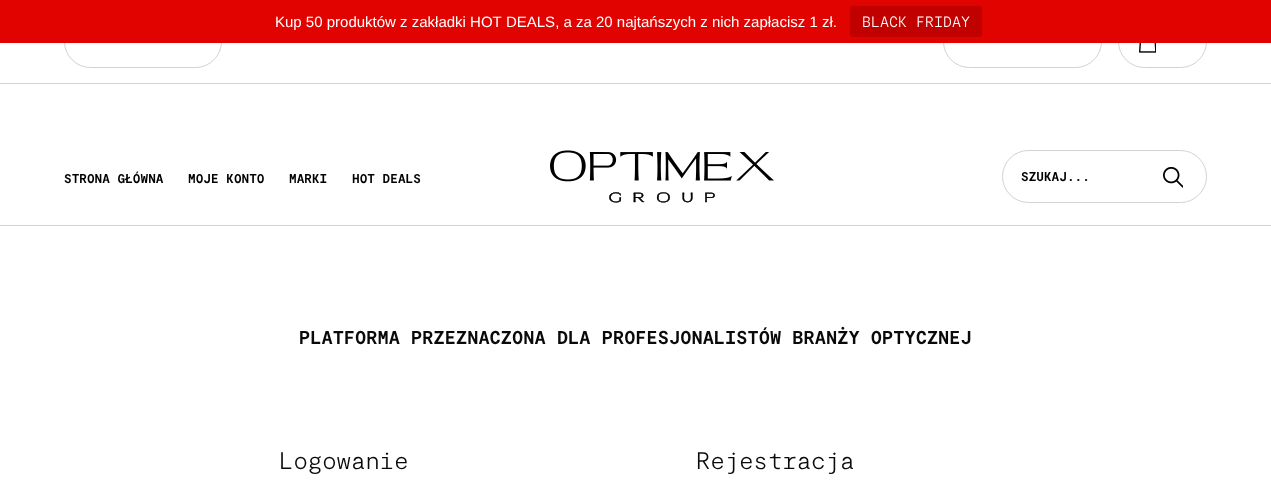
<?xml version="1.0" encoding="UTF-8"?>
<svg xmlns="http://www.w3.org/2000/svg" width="1271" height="502">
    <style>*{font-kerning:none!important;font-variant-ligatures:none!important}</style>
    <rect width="100%" height="100%" fill="#FFFFFF"/>
    <rect x="64.5" y="15.5" width="157" height="52" rx="26" fill="none" stroke="#D2D2D2"/>
    <rect x="943.5" y="15.5" width="158" height="52" rx="26" fill="none" stroke="#D2D2D2"/>
    <rect x="1118.5" y="15.5" width="88" height="52" rx="26" fill="none" stroke="#D2D2D2"/>
    <rect x="0" y="0" width="1271" height="43" fill="#E00300"/>
    <text x="275" y="27" font-family="Liberation Sans" font-size="15" fill="#FFFFFF">Kup 50 produktów z zakładki HOT DEALS, a za 20 najtańszych z nich zapłacisz 1 zł.</text>
    <rect x="850" y="6" width="132" height="31" rx="3" fill="#C10000"/>
    <text x="862" y="27" font-family="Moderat" font-size="15" font-weight="300" fill="#FFFFFF">BLACK FRIDAY</text>
    <rect x="0" y="83" width="1271" height="1" fill="#D2D2D2"/>
    <image x="1139" y="43" width="17" height="10" href="img_01.png"/>
    <rect x="0" y="225" width="1271" height="1" fill="#D2D2D2"/>
    <text x="64" y="183" font-family="Moderat" font-size="12.75" font-weight="700" fill="#000000">STRONA GŁÓWNA</text>
    <text x="188" y="183" font-family="Moderat" font-size="12.75" font-weight="700" fill="#000000">MOJE KONTO</text>
    <text x="289" y="183" font-family="Moderat" font-size="12.75" font-weight="700" fill="#000000">MARKI</text>
    <text x="352" y="183" font-family="Moderat" font-size="12.75" font-weight="700" fill="#000000">HOT DEALS</text>
    <image x="550" y="150" width="224" height="53" href="img_02.png"/>
    <rect x="1002.5" y="150.5" width="204" height="52" rx="26" fill="none" stroke="#D2D2D2"/>
    <text x="1021" y="181" font-family="Moderat" font-size="12.75" font-weight="700" fill="#000000">SZUKAJ...</text>
    <image x="1163" y="167" width="20" height="21" href="img_03.png"/>
    <text x="299" y="344" font-family="Moderat" font-size="18.7" font-weight="700" fill="#0A0A0A">PLATFORMA PRZEZNACZONA DLA PROFESJONALISTÓW BRANŻY OPTYCZNEJ</text>
    <text x="279" y="469" font-family="Moderat" font-size="24" font-weight="300" fill="#0A0A0A">Logowanie</text>
    <text x="696" y="469" font-family="Moderat" font-size="24" font-weight="300" fill="#0A0A0A">Rejestracja</text>
</svg>
